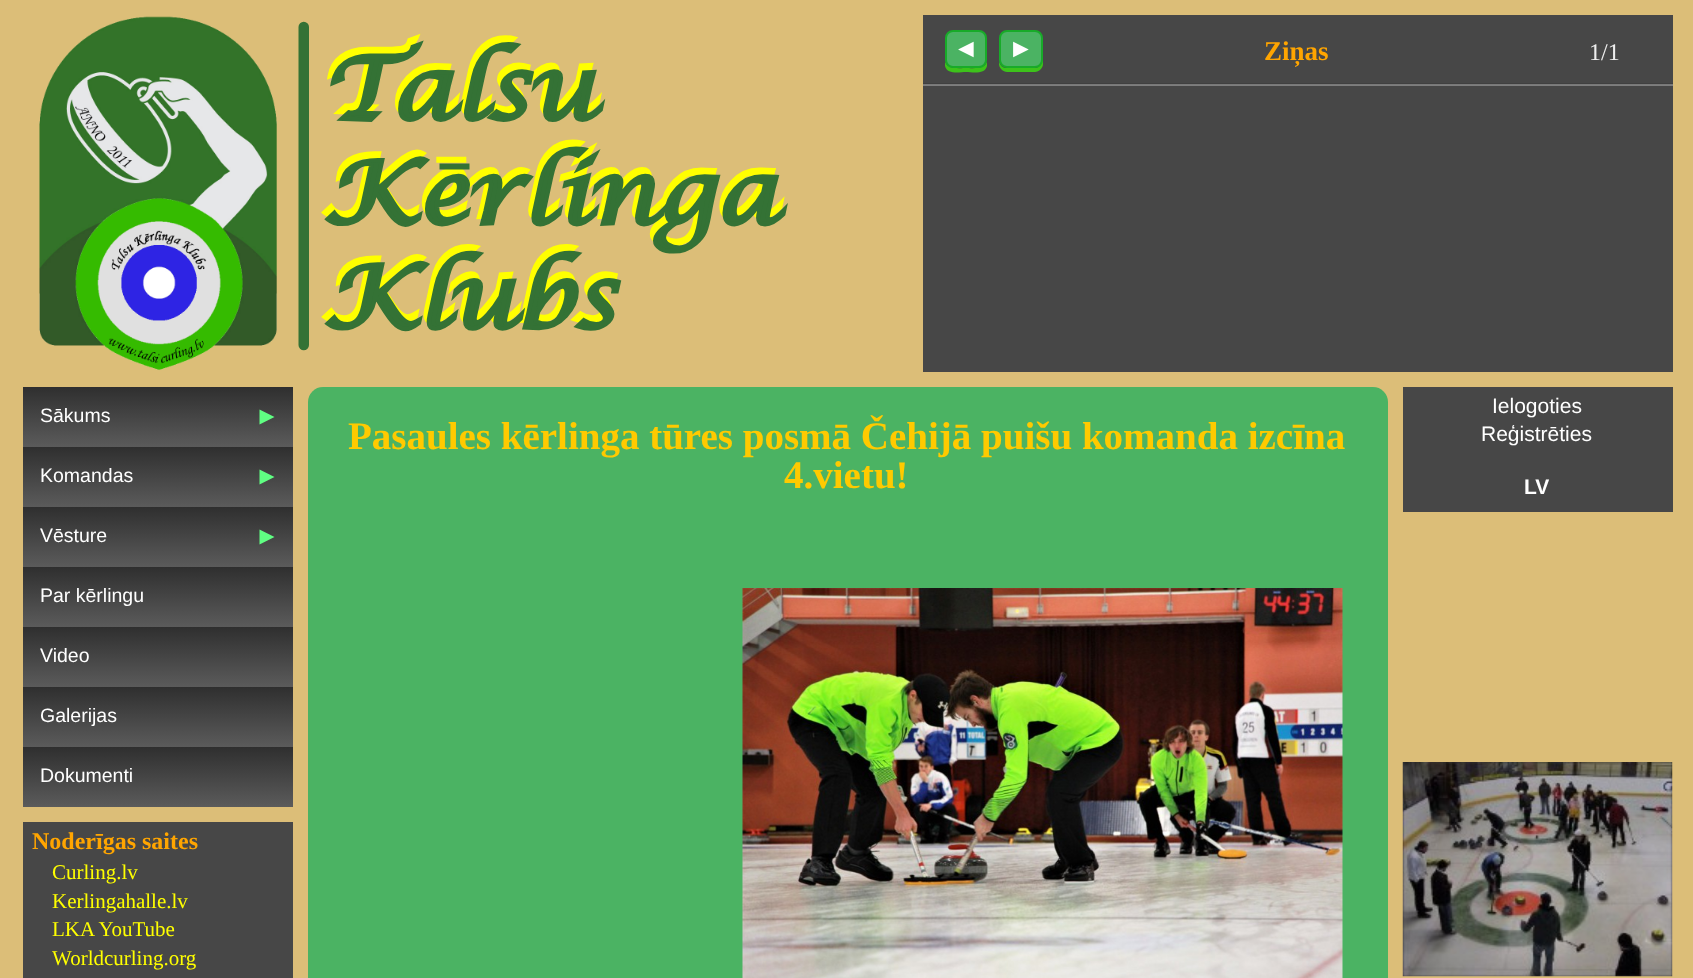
<?xml version="1.0" encoding="UTF-8"?>
<svg xmlns="http://www.w3.org/2000/svg" width="1693" height="978">
    <defs>
        <linearGradient id="g1" gradientUnits="userSpaceOnUse" x1="158" y1="387" x2="158" y2="447"><stop offset="0" stop-color="#2F2F2F"/><stop offset="1" stop-color="#5B5B5B"/></linearGradient>
        <linearGradient id="g2" gradientUnits="userSpaceOnUse" x1="158" y1="447" x2="158" y2="507"><stop offset="0" stop-color="#2F2F2F"/><stop offset="1" stop-color="#5B5B5B"/></linearGradient>
        <linearGradient id="g3" gradientUnits="userSpaceOnUse" x1="158" y1="507" x2="158" y2="567"><stop offset="0" stop-color="#2F2F2F"/><stop offset="1" stop-color="#5B5B5B"/></linearGradient>
        <linearGradient id="g4" gradientUnits="userSpaceOnUse" x1="158" y1="567" x2="158" y2="627"><stop offset="0" stop-color="#2F2F2F"/><stop offset="1" stop-color="#5B5B5B"/></linearGradient>
        <linearGradient id="g5" gradientUnits="userSpaceOnUse" x1="158" y1="627" x2="158" y2="687"><stop offset="0" stop-color="#2F2F2F"/><stop offset="1" stop-color="#5B5B5B"/></linearGradient>
        <linearGradient id="g6" gradientUnits="userSpaceOnUse" x1="158" y1="687" x2="158" y2="747"><stop offset="0" stop-color="#2F2F2F"/><stop offset="1" stop-color="#5B5B5B"/></linearGradient>
        <linearGradient id="g7" gradientUnits="userSpaceOnUse" x1="158" y1="747" x2="158" y2="807"><stop offset="0" stop-color="#2F2F2F"/><stop offset="1" stop-color="#5B5B5B"/></linearGradient>
    </defs>
    <rect width="100%" height="100%" fill="#DCBE78"/>
    <image x="39" y="16" width="238" height="355" href="img_01.png"/>
    <image x="298" y="21" width="490" height="330" href="img_02.png"/>
    <rect x="923" y="15" width="750" height="357" fill="#474747"/>
    <rect x="923" y="85" width="750" height="1" fill="#7E7E7E"/>
    <path d="M 945 60 V 66 C 947 75 960 72 966 72 C 972 72 985 75 987 66 V 60 C 987 70 972 68 966 68 C 960 68 945 70 945 60 Z" fill="#3DC21B"/>
    <rect x="946" y="31" width="40" height="36" rx="7" fill="#4BB363" stroke="#18AB29" stroke-width="2"/>
    <text x="953" y="57" font-family="Liberation Sans" font-size="26" font-weight="700" fill="#FFFFFF">◄</text>
    <path d="M 999 60 V 64 C 999 68 1003 72 1007 72 H 1035 C 1039 72 1043 68 1043 64 V 43 L 1042 40 V 60 C 1042 64 1039 68 1035 68 H 1006 C 1002 68 999 64 999 60 Z" fill="#3DC21B"/>
    <rect x="1000" y="31" width="42" height="36" rx="7" fill="#4BB363" stroke="#18AB29" stroke-width="2"/>
    <text x="1008" y="57" font-family="Liberation Sans" font-size="26" font-weight="700" fill="#FFFFFF">►</text>
    <text x="1264" y="60" font-family="Liberation Serif" font-size="27" font-weight="700" fill="#FFA500">Ziņas</text>
    <text x="1589" y="60" font-family="Liberation Serif" font-size="24" fill="#EEEEEE">1/1</text>
    <rect x="923" y="83" width="750" height="1" fill="#404040"/>
    <rect x="923" y="84" width="750" height="1" fill="#797979"/>
    <rect x="23" y="387" width="270" height="60" fill="url(#g1)"/>
    <text x="40" y="422" font-family="Liberation Sans" font-size="19.5" fill="#FFFFFF">Sākums</text>
    <path d="M 259.5 424.5 V 409.5 L 274.5 417 Z" fill="#60FF83"/>
    <rect x="23" y="447" width="270" height="60" fill="url(#g2)"/>
    <text x="40" y="482" font-family="Liberation Sans" font-size="19.5" fill="#FFFFFF">Komandas</text>
    <path d="M 259.5 484.5 V 469.5 L 274.5 477 Z" fill="#60FF83"/>
    <rect x="23" y="507" width="270" height="60" fill="url(#g3)"/>
    <text x="40" y="542" font-family="Liberation Sans" font-size="19.5" fill="#FFFFFF">Vēsture</text>
    <path d="M 259.5 544.5 V 529.5 L 274.5 537 Z" fill="#60FF83"/>
    <rect x="23" y="567" width="270" height="60" fill="url(#g4)"/>
    <text x="40" y="602" font-family="Liberation Sans" font-size="19.5" fill="#FFFFFF">Par kērlingu</text>
    <rect x="23" y="627" width="270" height="60" fill="url(#g5)"/>
    <text x="40" y="662" font-family="Liberation Sans" font-size="19.5" fill="#FFFFFF">Video</text>
    <rect x="23" y="687" width="270" height="60" fill="url(#g6)"/>
    <text x="40" y="722" font-family="Liberation Sans" font-size="19.5" fill="#FFFFFF">Galerijas</text>
    <rect x="23" y="747" width="270" height="60" fill="url(#g7)"/>
    <text x="40" y="782" font-family="Liberation Sans" font-size="19.5" fill="#FFFFFF">Dokumenti</text>
    <rect x="23" y="822" width="270" height="156" fill="#474747"/>
    <text x="32" y="849" font-family="Liberation Serif" font-size="24" font-weight="700" fill="#FFA500">Noderīgas saites</text>
    <text font-family="Liberation Serif" font-size="21" fill="#FFFF00">
        <tspan x="52" y="879">Curling.lv</tspan>
        <tspan x="52" y="908">Kerlingahalle.lv</tspan>
        <tspan x="52" y="936">LKA YouTube</tspan>
        <tspan x="52" y="965">Worldcurling.org</tspan>
    </text>
    <rect x="308" y="387" width="1080" height="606" rx="15" fill="#4BB363"/>
    <text x="348" y="449" font-family="Liberation Serif" font-size="39" font-weight="700" fill="#FFCA00">Pasaules kērlinga tūres posmā Čehijā puišu komanda izcīna</text>
    <text x="784" y="488" font-family="Liberation Serif" font-size="39" font-weight="700" fill="#FFCA00">4.vietu!</text>
    <image x="742" y="588" width="601" height="390" href="img_03.png"/>
    <rect x="1403" y="387" width="270" height="125" fill="#474747"/>
    <text x="1492" y="413" font-family="Liberation Sans" font-size="21" fill="#FFFFFF">Ielogoties</text>
    <text x="1481" y="441" font-family="Liberation Sans" font-size="21" fill="#FFFFFF">Reģistrēties</text>
    <text x="1524" y="494" font-family="Liberation Sans" font-size="21" font-weight="700" fill="#FFFFFF">LV</text>
    <image x="1402" y="762" width="271" height="215" href="img_04.png"/>
</svg>
